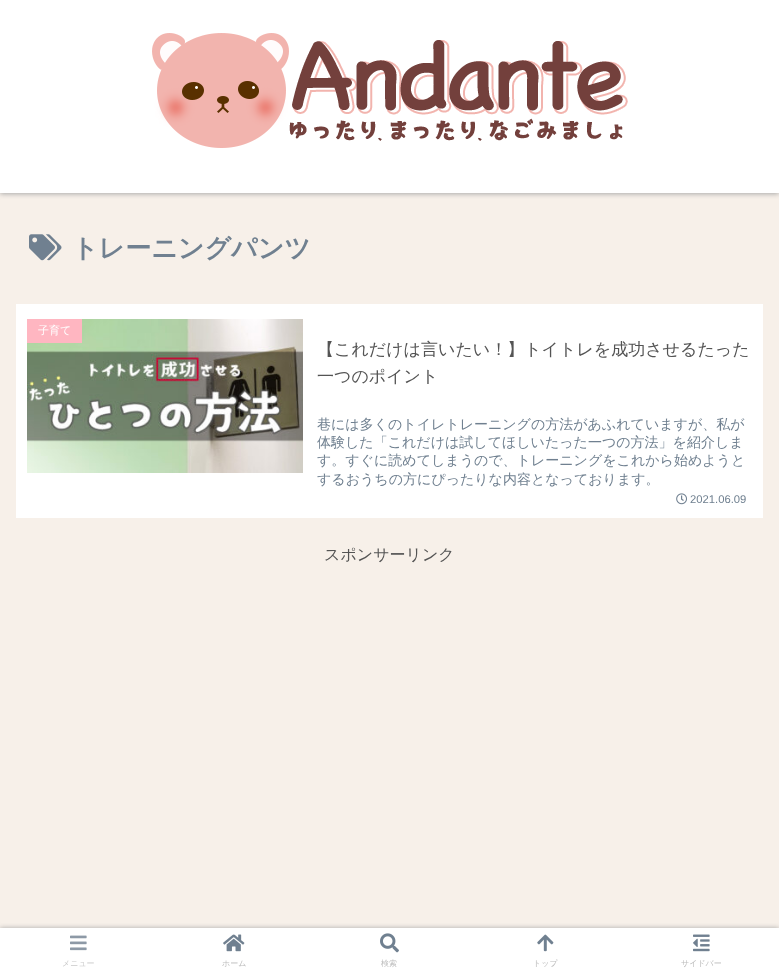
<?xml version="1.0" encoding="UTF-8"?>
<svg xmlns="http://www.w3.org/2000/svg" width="779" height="978">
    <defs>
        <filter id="blur1" x="-50%" y="-200%" width="200%" height="500%"><feGaussianBlur stdDeviation="2.5"/></filter>
    </defs>
    <rect width="100%" height="100%" fill="#F7F0E9"/>
    <rect x="0" y="1" width="779" height="193" fill="#A9A9A9" filter="url(#blur1)"/>
    <rect x="0" y="0" width="779" height="193" fill="#FFFFFF"/>
    <image x="152" y="33" width="476" height="115" href="img_01.png"/>
    <image x="29" y="234" width="33" height="27" href="img_02.png"/>
    <text x="72" y="257" font-family="WenQuanYi Zen Hei" font-size="26" font-weight="700" fill="#708090">トレーニングパンツ</text>
    <rect x="16" y="304" width="747" height="214" fill="#FFFFFF"/>
    <image x="27" y="319" width="276" height="154" href="img_03.png"/>
    <rect x="27" y="319" width="55" height="24" fill="#FFB6C1"/>
    <text x="38" y="334" font-family="WenQuanYi Zen Hei" font-size="11" font-weight="500" fill="#FFFFFF">子育て</text>
    <text font-family="WenQuanYi Zen Hei" font-size="17" font-weight="500" fill="#545454">
        <tspan x="317" y="355">【これだけは言いたい！】トイトレを成功させるたった</tspan>
        <tspan x="317" y="382">一つのポイント</tspan>
    </text>
    <text font-family="WenQuanYi Zen Hei" font-size="14" font-weight="500" fill="#708090">
        <tspan x="317" y="429">巷には多くのトイレトレーニングの方法があふれていますが、私が</tspan>
        <tspan x="317" y="447">体験した「これだけは試してほしいたった一つの方法」を紹介しま</tspan>
        <tspan x="317" y="465">す。すぐに読めてしまうので、トレーニングをこれから始めようと</tspan>
        <tspan x="317" y="484">するおうちの方にぴったりな内容となっております。</tspan>
    </text>
    <image x="676" y="493" width="11" height="12" href="img_04.png"/>
    <text x="690" y="503" font-family="Liberation Sans" font-size="11.25" fill="#708090">2021.06.09</text>
    <text x="324" y="560" font-family="WenQuanYi Zen Hei" font-size="16" font-weight="500" fill="#545454">スポンサーリンク</text>
    <rect x="0" y="928" width="779" height="50" fill="#A9A9A9" filter="url(#blur1)"/>
    <rect x="0" y="928" width="779" height="50" fill="#FFFFFF"/>
    <image x="70" y="935" width="17" height="16" href="img_05.png"/>
    <text x="62" y="966" font-family="WenQuanYi Zen Hei" font-size="8" font-weight="500" fill="#C9C9C9">メニュー</text>
    <image x="223" y="934" width="22" height="18" href="img_06.png"/>
    <text x="222" y="966" font-family="WenQuanYi Zen Hei" font-size="8" font-weight="500" fill="#BBBBBB">ホーム</text>
    <image x="380" y="933" width="19" height="20" href="img_07.png"/>
    <text x="381" y="966" font-family="WenQuanYi Zen Hei" font-size="8" font-weight="500" fill="#BBBBBB">検索</text>
    <image x="537" y="934" width="17" height="18" href="img_08.png"/>
    <text x="533" y="966" font-family="WenQuanYi Zen Hei" font-size="8" font-weight="500" fill="#BBBBBB">トップ</text>
    <image x="693" y="934" width="17" height="18" href="img_09.png"/>
    <text x="681" y="966" font-family="WenQuanYi Zen Hei" font-size="8" font-weight="500" fill="#BBBBBB">サイドバー</text>
</svg>
